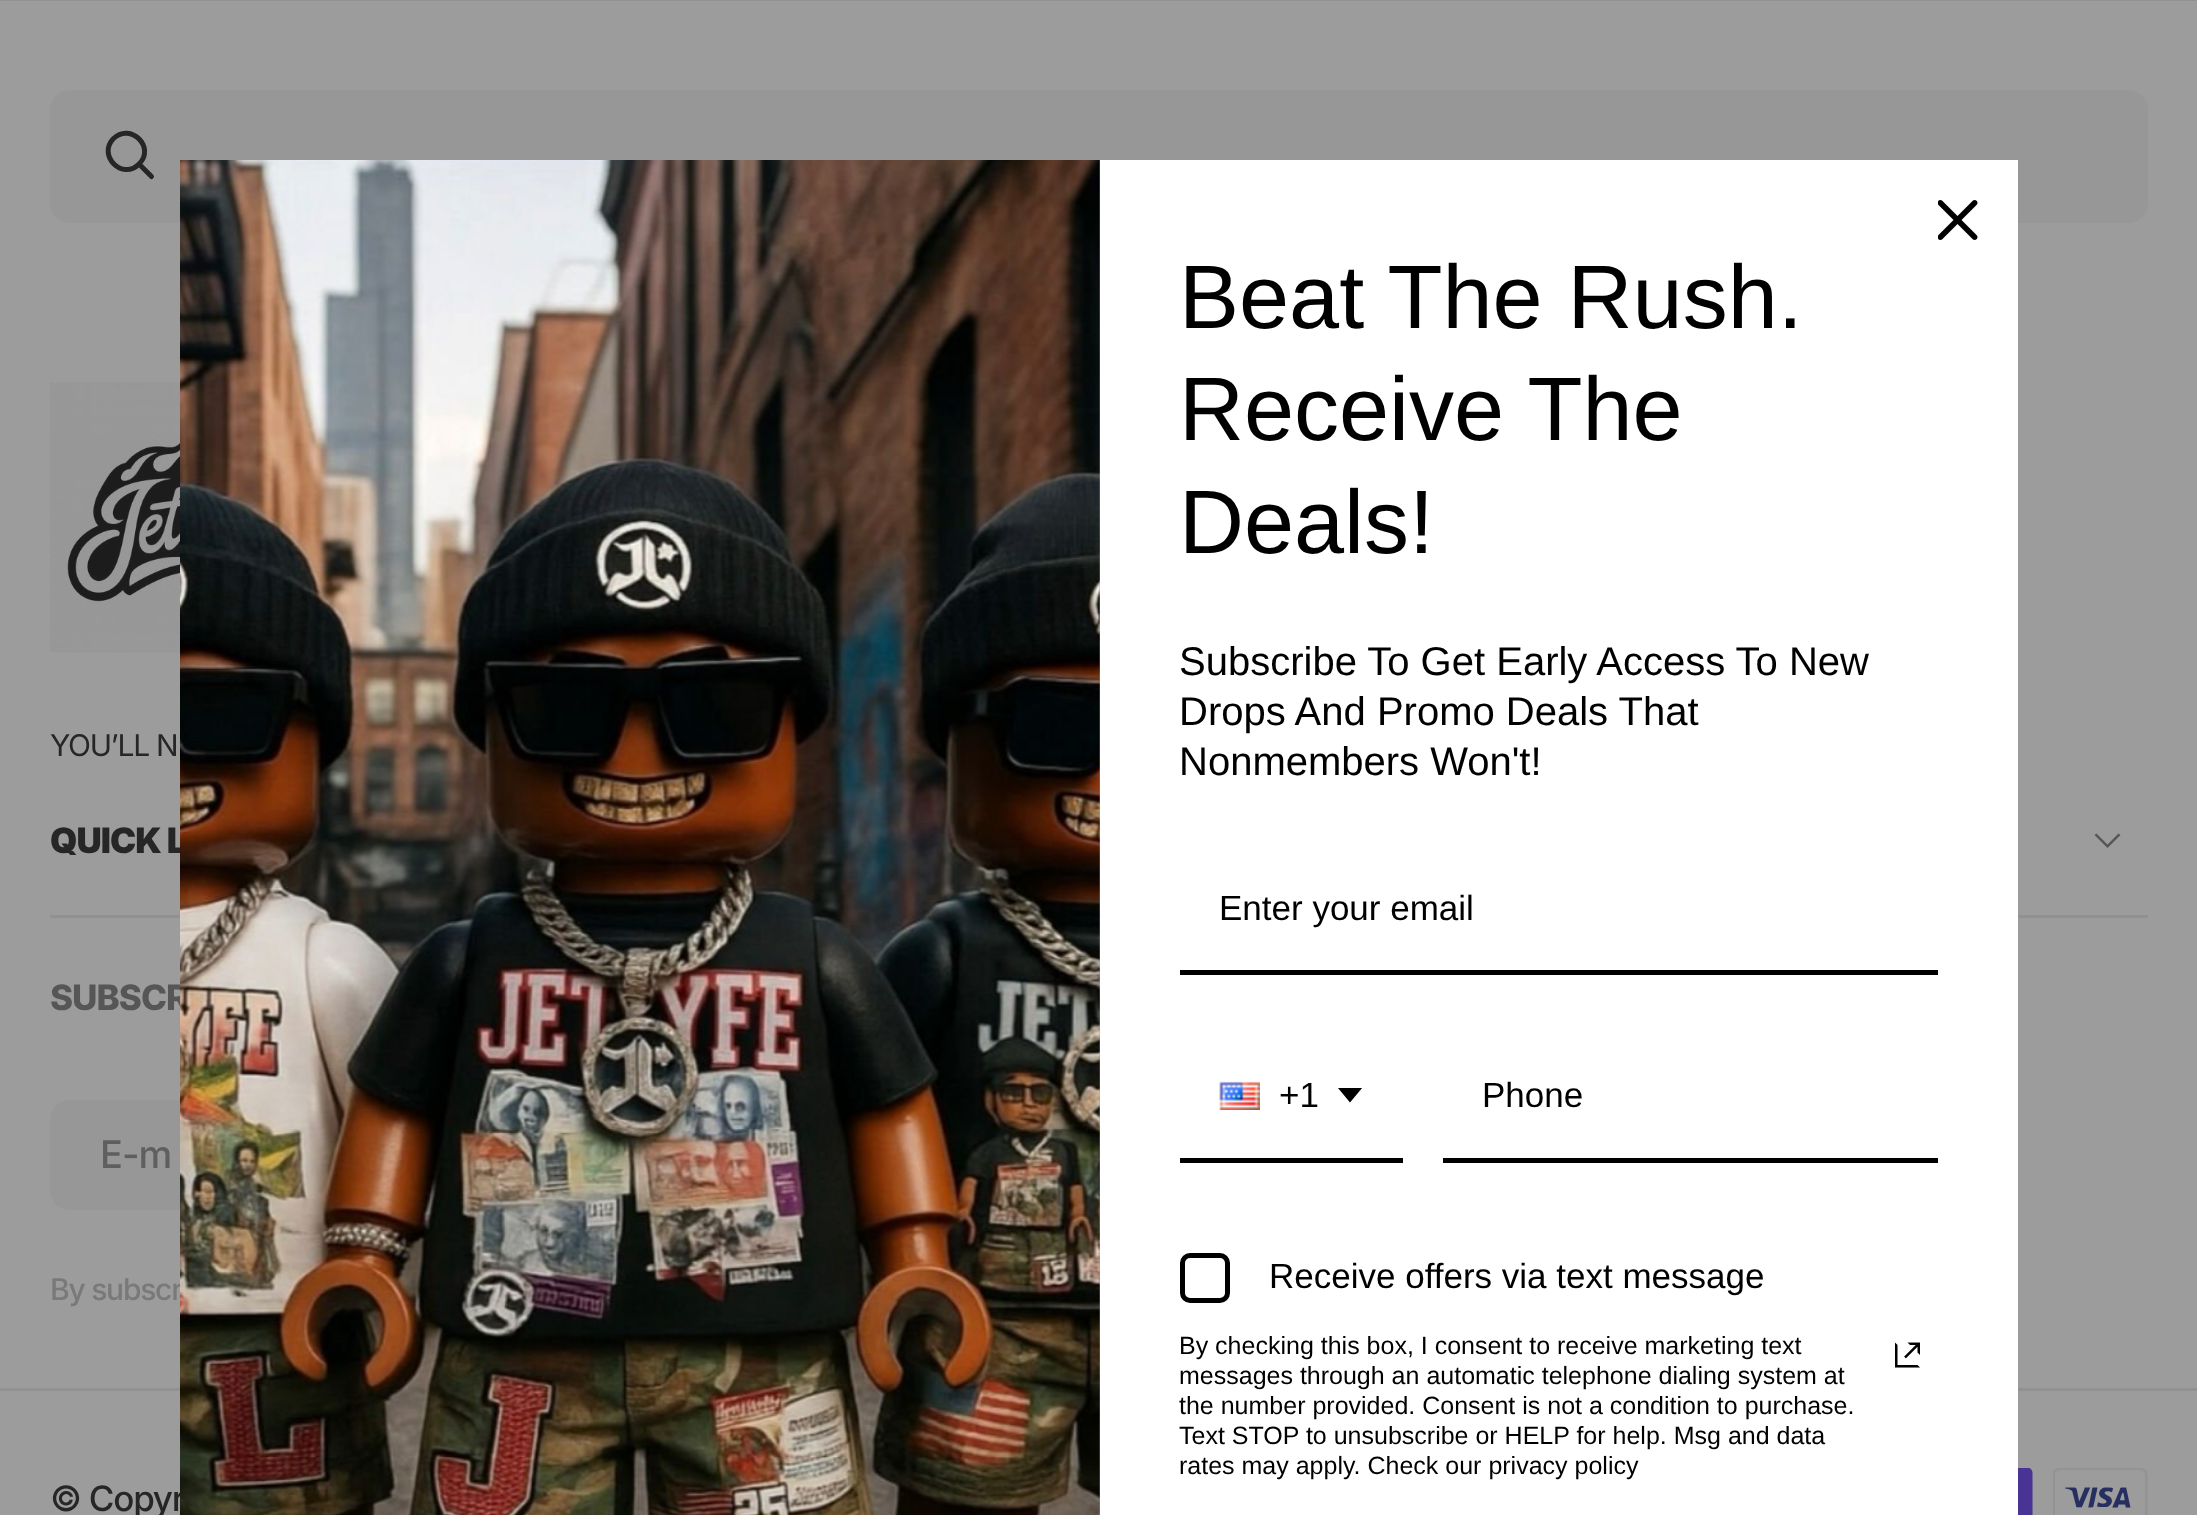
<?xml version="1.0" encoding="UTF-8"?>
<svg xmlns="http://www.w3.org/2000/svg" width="2197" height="1515">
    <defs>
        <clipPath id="clip1"><rect x="1338" y="1088" width="25" height="15"/></clipPath>
    </defs>
    <rect width="100%" height="100%" fill="#9C9C9C"/>
    <rect x="0" y="0" width="2197" height="1" fill="#919191"/>
    <rect x="50" y="90" width="2098" height="133" rx="20" fill="#979797"/>
    <path d="M 151.5 176.5 L 139 164 M 139 164 C 156 147.5 130.5 122 113.5 138.5 C 97 155.5 122.5 181 139 164 Z" fill="none" stroke="#262626" stroke-width="5" stroke-linecap="round" stroke-linejoin="round"/>
    <image x="50" y="382" width="130" height="271" href="img_01.png"/>
    <text x="50" y="756" font-family="Inter" font-size="30" letter-spacing="-1.25" fill="#262626">YOU’LL N</text>
    <rect x="50" y="915" width="2098" height="3" fill="#919191"/>
    <text x="50" y="853" font-family="Inter" font-size="35" font-weight="900" letter-spacing="-1" fill="#262626">QUICK L</text>
    <path d="M 2107.5 844.5 L 2118.5 833.5 L 2120.5 835 L 2107.5 848 L 2094.5 835 L 2096.5 833.5 Z" fill="#565656"/>
    <text x="50" y="1010" font-family="Inter" font-size="35" font-weight="800" letter-spacing="-1" fill="#565656">SUBSCR</text>
    <rect x="50" y="1100" width="1063" height="110" rx="20" fill="#979797"/>
    <text x="100" y="1168" font-family="Inter" font-size="38" font-weight="500" letter-spacing="-1" fill="#5F5F5F">E-m</text>
    <text x="50" y="1300" font-family="Inter" font-size="30" font-weight="500" letter-spacing="-1.25" fill="#797979">By subscr</text>
    <rect x="0" y="1388" width="2197" height="3" fill="#919191"/>
    <text x="50" y="1511" font-family="Inter" font-size="35" font-weight="500" letter-spacing="-1.25" fill="#262626">© Copyr</text>
    <image x="2018" y="1468" width="15" height="47" href="img_02.png"/>
    <image x="2053" y="1468" width="95" height="47" href="img_03.png"/>
    <rect x="1100" y="160" width="918" height="1355" fill="#FFFFFF"/>
    <image x="1938" y="200" width="40" height="40" href="img_04.png"/>
    <image x="180" y="160" width="920" height="1355" href="img_05.png"/>
    <text font-family="Liberation Sans" font-size="90" fill="#000000">
        <tspan x="1179" y="328">Beat The Rush.</tspan>
        <tspan x="1179" y="440">Receive The</tspan>
        <tspan x="1179" y="553">Deals!</tspan>
    </text>
    <text font-family="Liberation Sans" font-size="40" fill="#000000">
        <tspan x="1179" y="675">Subscribe To Get Early Access To New</tspan>
        <tspan x="1179" y="725">Drops And Promo Deals That</tspan>
        <tspan x="1179" y="775">Nonmembers Won't!</tspan>
    </text>
    <rect x="1180" y="970" width="758" height="5" fill="#000000"/>
    <text x="1219" y="920" font-family="Liberation Sans" font-size="35" fill="#000000">Enter your email</text>
    <rect x="1180" y="1158" width="223" height="5" fill="#000000"/>
    <image x="1219" y="1081" width="41" height="29" href="img_06.png"/>
    <text x="1279" y="1107" font-family="Liberation Sans" font-size="35" fill="#000000">+1</text>
    <g clip-path="url(#clip1)">
        <path d="M 1337.5 1087.5 H 1362.5 L 1350 1102.5 Z" fill="#000000" fill-rule="evenodd"/>
    </g>
    <rect x="1443" y="1158" width="495" height="5" fill="#000000"/>
    <text x="1482" y="1107" font-family="Liberation Sans" font-size="35" fill="#000000">Phone</text>
    <rect x="1182.5" y="1255.5" width="45" height="45" rx="7.5" fill="none" stroke="#000000" stroke-width="5"/>
    <text x="1269" y="1288" font-family="Liberation Sans" font-size="35" fill="#000000">Receive offers via text message</text>
    <text font-family="Liberation Sans" font-size="25" fill="#000000">
        <tspan x="1179" y="1354">By checking this box, I consent to receive marketing text</tspan>
        <tspan x="1179" y="1384">messages through an automatic telephone dialing system at</tspan>
        <tspan x="1179" y="1414">the number provided. Consent is not a condition to purchase.</tspan>
        <tspan x="1179" y="1444">Text STOP to unsubscribe or HELP for help. Msg and data</tspan>
        <tspan x="1179" y="1474">rates may apply. Check our privacy policy</tspan>
    </text>
    <image x="1895" y="1342" width="25" height="26" href="img_07.png"/>
</svg>
